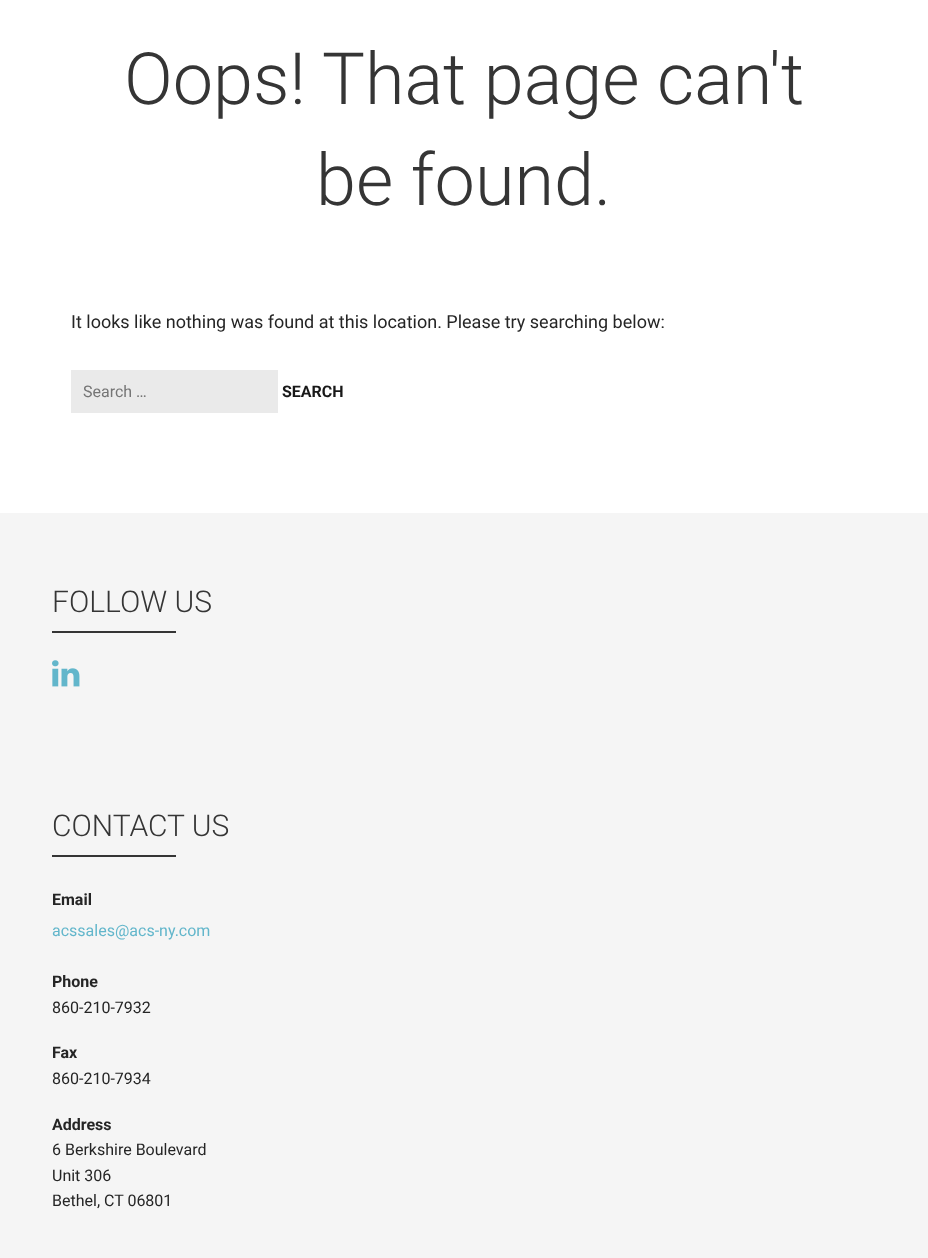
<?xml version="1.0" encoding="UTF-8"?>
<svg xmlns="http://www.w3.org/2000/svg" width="928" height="1258">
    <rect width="100%" height="100%" fill="#FFFFFF"/>
    <text x="124" y="104" font-family="Roboto" font-size="72" font-weight="300" fill="#353535">Oops! That page can't</text>
    <text x="316" y="205" font-family="Roboto" font-size="72" font-weight="300" fill="#353535">be found.</text>
    <text x="71" y="328" font-family="Roboto" font-size="18" fill="#252525">It looks like nothing was found at this location. Please try searching below:</text>
    <rect x="71" y="370" width="207" height="43" fill="#EAEAEA"/>
    <text x="83" y="397" font-family="Roboto" font-size="16" fill="#757575">Search …</text>
    <text x="282" y="397" font-family="Roboto" font-size="16" font-weight="700" fill="#181818">SEARCH</text>
    <rect x="0" y="513" width="928" height="745" fill="#F5F5F5"/>
    <text x="52" y="612" font-family="Roboto" font-size="30" font-weight="300" fill="#353535">FOLLOW US</text>
    <rect x="52" y="631" width="124" height="2" fill="#353535"/>
    <image x="52" y="660" width="28" height="27" href="img_01.png"/>
    <text x="52" y="836" font-family="Roboto" font-size="30" font-weight="300" fill="#353535">CONTACT US</text>
    <rect x="52" y="855" width="124" height="2" fill="#353535"/>
    <text x="52" y="905" font-family="Roboto" font-size="16" font-weight="700" fill="#252525">Email</text>
    <text x="52" y="936" font-family="Roboto" font-size="16" fill="#62B6CB">acssales@acs-ny.com</text>
    <text x="52" y="987" font-family="Roboto" font-size="16" font-weight="700" fill="#252525">Phone</text>
    <text x="52" y="1013" font-family="Roboto" font-size="16" fill="#252525">860-210-7932</text>
    <text x="52" y="1058" font-family="Roboto" font-size="16" font-weight="700" fill="#252525">Fax</text>
    <text x="52" y="1084" font-family="Roboto" font-size="16" fill="#252525">860-210-7934</text>
    <text x="52" y="1130" font-family="Roboto" font-size="16" font-weight="700" fill="#252525">Address</text>
    <text font-family="Roboto" font-size="16" fill="#252525">
        <tspan x="52" y="1155">6 Berkshire Boulevard</tspan>
        <tspan x="52" y="1181">Unit 306</tspan>
        <tspan x="52" y="1206">Bethel, CT 06801</tspan>
    </text>
</svg>
